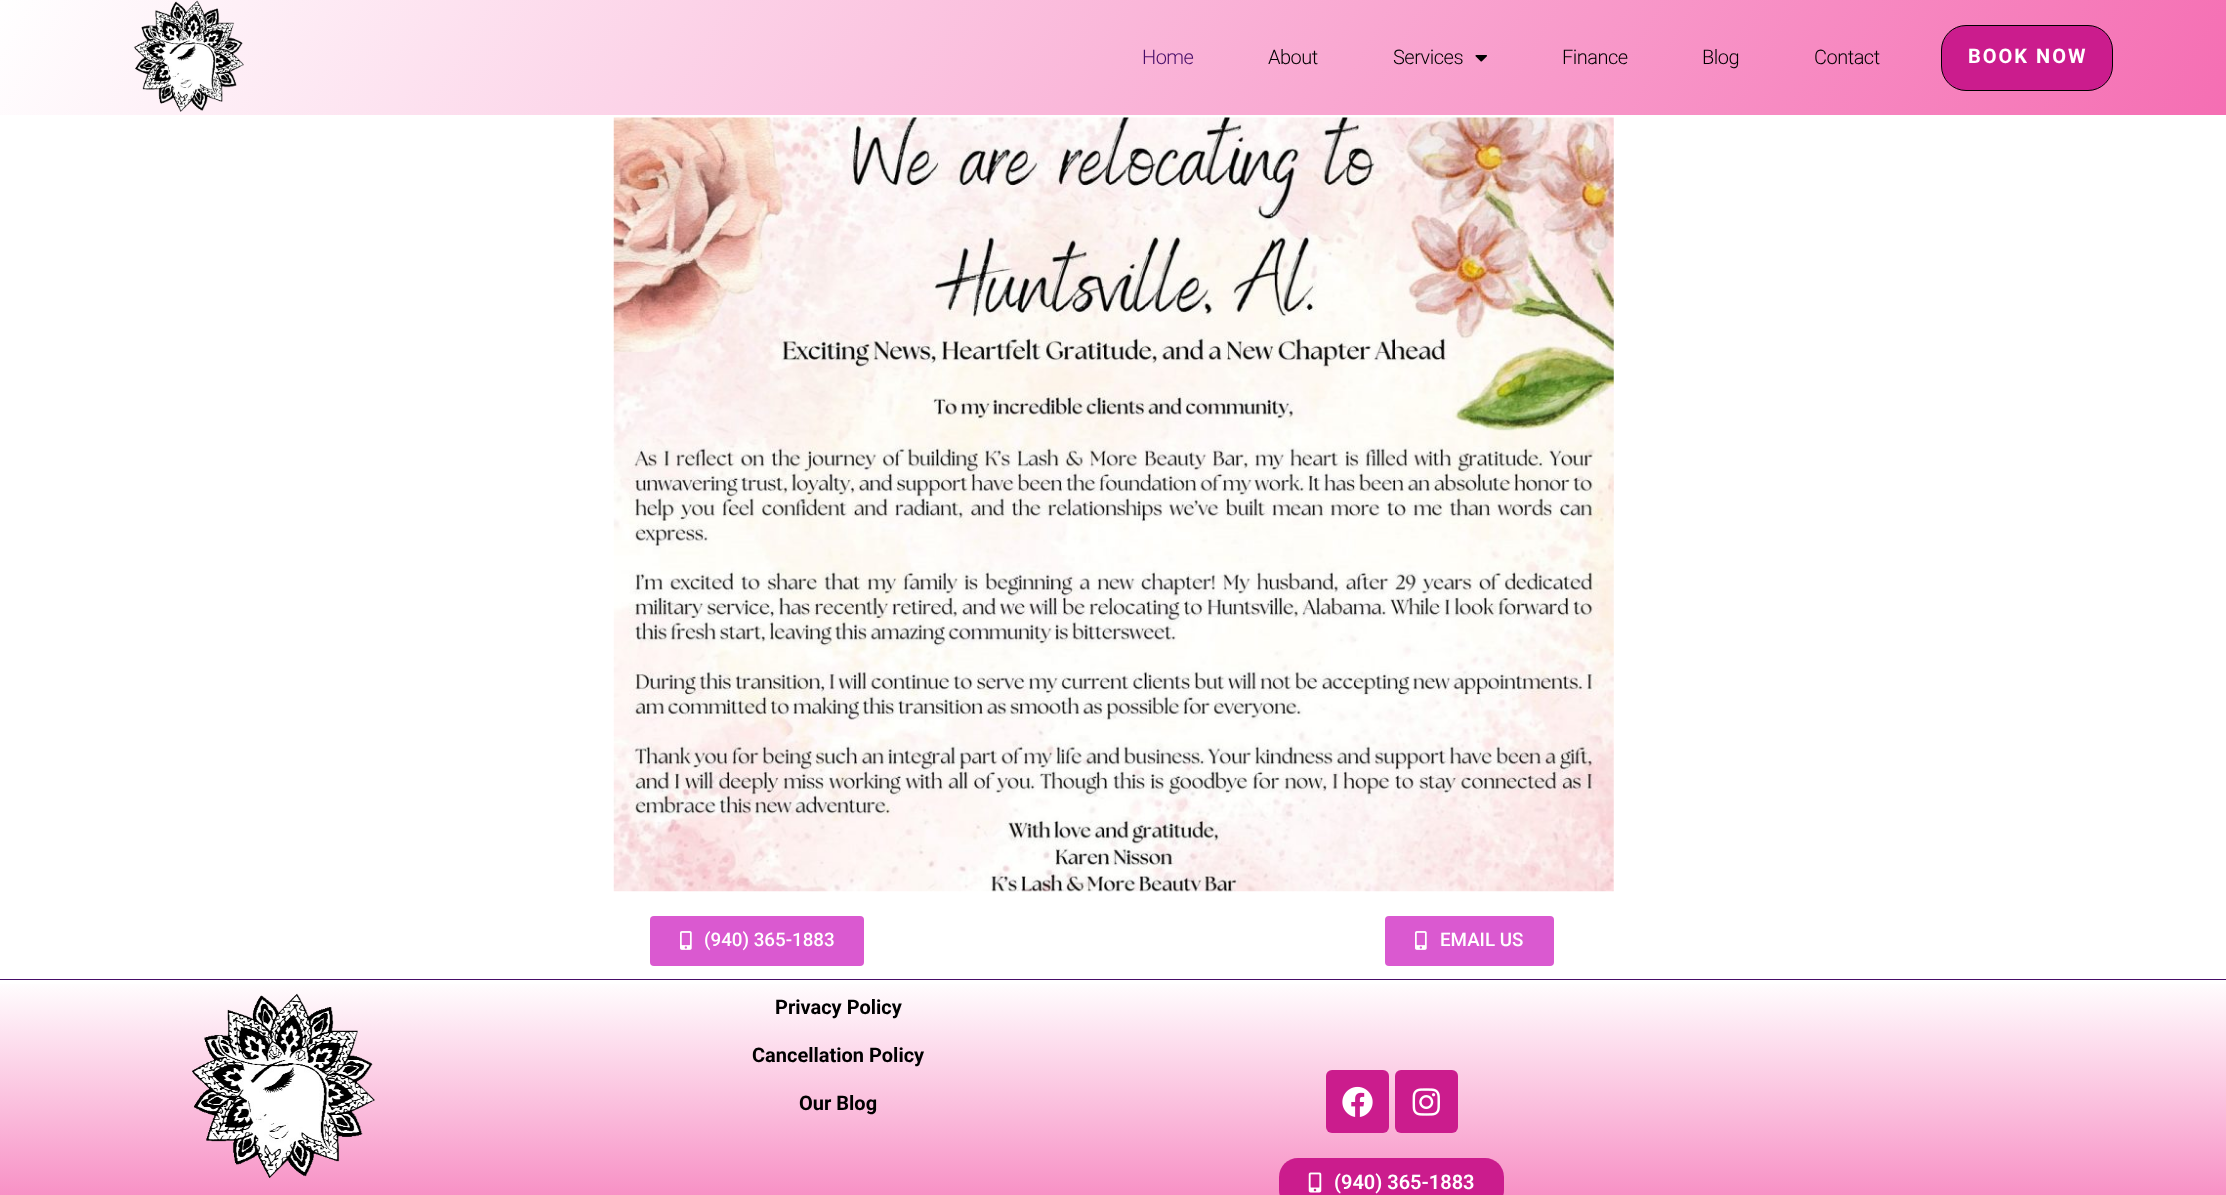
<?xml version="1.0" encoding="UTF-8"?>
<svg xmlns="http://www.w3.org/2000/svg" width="2226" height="1195">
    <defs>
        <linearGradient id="g1" gradientUnits="userSpaceOnUse" x1="253" y1="-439" x2="1973" y2="554"><stop offset="0" stop-color="#FFFFFF"/><stop offset="1" stop-color="#F56EB3"/></linearGradient>
        <linearGradient id="g2" gradientUnits="userSpaceOnUse" x1="1113" y1="979" x2="1113" y2="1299"><stop offset="0" stop-color="#FFFFFF"/><stop offset="0.89" stop-color="#F56EB3"/></linearGradient>
    </defs>
    <rect width="100%" height="100%" fill="#FFFFFF"/>
    <rect x="0" y="0" width="2226" height="115" fill="url(#g1)"/>
    <image x="133" y="0" width="111" height="112" href="img_01.png"/>
    <text x="1142" y="64" font-family="Roboto" font-size="20" font-weight="300" letter-spacing="-0.5" fill="#460C68">Home</text>
    <text x="1268" y="64" font-family="Roboto" font-size="20" font-weight="300" letter-spacing="-0.5" fill="#000000">About</text>
    <text x="1393" y="64" font-family="Roboto" font-size="20" font-weight="300" letter-spacing="-0.5" fill="#000000">Services</text>
    <image x="1475" y="55" width="12" height="7" href="img_02.png"/>
    <text x="1562" y="64" font-family="Roboto" font-size="20" font-weight="300" letter-spacing="-0.5" fill="#000000">Finance</text>
    <text x="1702" y="64" font-family="Roboto" font-size="20" font-weight="300" letter-spacing="-0.5" fill="#000000">Blog</text>
    <text x="1814" y="64" font-family="Roboto" font-size="20" font-weight="300" letter-spacing="-0.5" fill="#000000">Contact</text>
    <rect x="1941.5" y="25.5" width="171" height="65" rx="24.5" fill="#CB1C8D" stroke="#000000"/>
    <text x="1968" y="63" font-family="Roboto" font-size="20" font-weight="700" letter-spacing="2" fill="#FFFFFF">BOOK NOW</text>
    <image x="613" y="117" width="1001" height="775" href="img_03.png"/>
    <rect x="650" y="916" width="214" height="50" rx="4" fill="#DA59D0"/>
    <image x="680" y="931" width="12" height="19" href="img_04.png"/>
    <text x="704" y="946" font-family="Roboto" font-size="18.75" font-weight="500" fill="#FFFFFF">(940) 365-1883</text>
    <rect x="1385" y="916" width="169" height="50" rx="4" fill="#DA59D0"/>
    <image x="1415" y="931" width="12" height="19" href="img_04.png"/>
    <text x="1440" y="946" font-family="Roboto" font-size="18.75" font-weight="500" fill="#FFFFFF">EMAIL US</text>
    <rect x="0" y="984" width="2226" height="211" fill="url(#g2)"/>
    <rect x="0" y="979" width="2226" height="1" fill="#460C68"/>
    <image x="191" y="993" width="184" height="185" href="img_05.png"/>
    <text x="775" y="1014" font-family="Roboto" font-size="20" font-weight="700" fill="#000000">Privacy Policy</text>
    <text x="752" y="1062" font-family="Roboto" font-size="20" font-weight="700" fill="#000000">Cancellation Policy</text>
    <text x="799" y="1110" font-family="Roboto" font-size="20" font-weight="700" fill="#000000">Our Blog</text>
    <rect x="1326" y="1070" width="63" height="63" rx="6" fill="#CB1C8D"/>
    <image x="1342" y="1086" width="31" height="31" href="img_06.png"/>
    <rect x="1395" y="1070" width="63" height="63" rx="6" fill="#CB1C8D"/>
    <image x="1412" y="1088" width="28" height="28" href="img_07.png"/>
    <rect x="1279" y="1158" width="225" height="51" rx="19" fill="#CB1C8D"/>
    <image x="1308" y="1172" width="14" height="21" href="img_08.png"/>
    <text x="1334" y="1189" font-family="Roboto" font-size="20" font-weight="600" fill="#FFFFFF">(940) 365-1883</text>
</svg>
